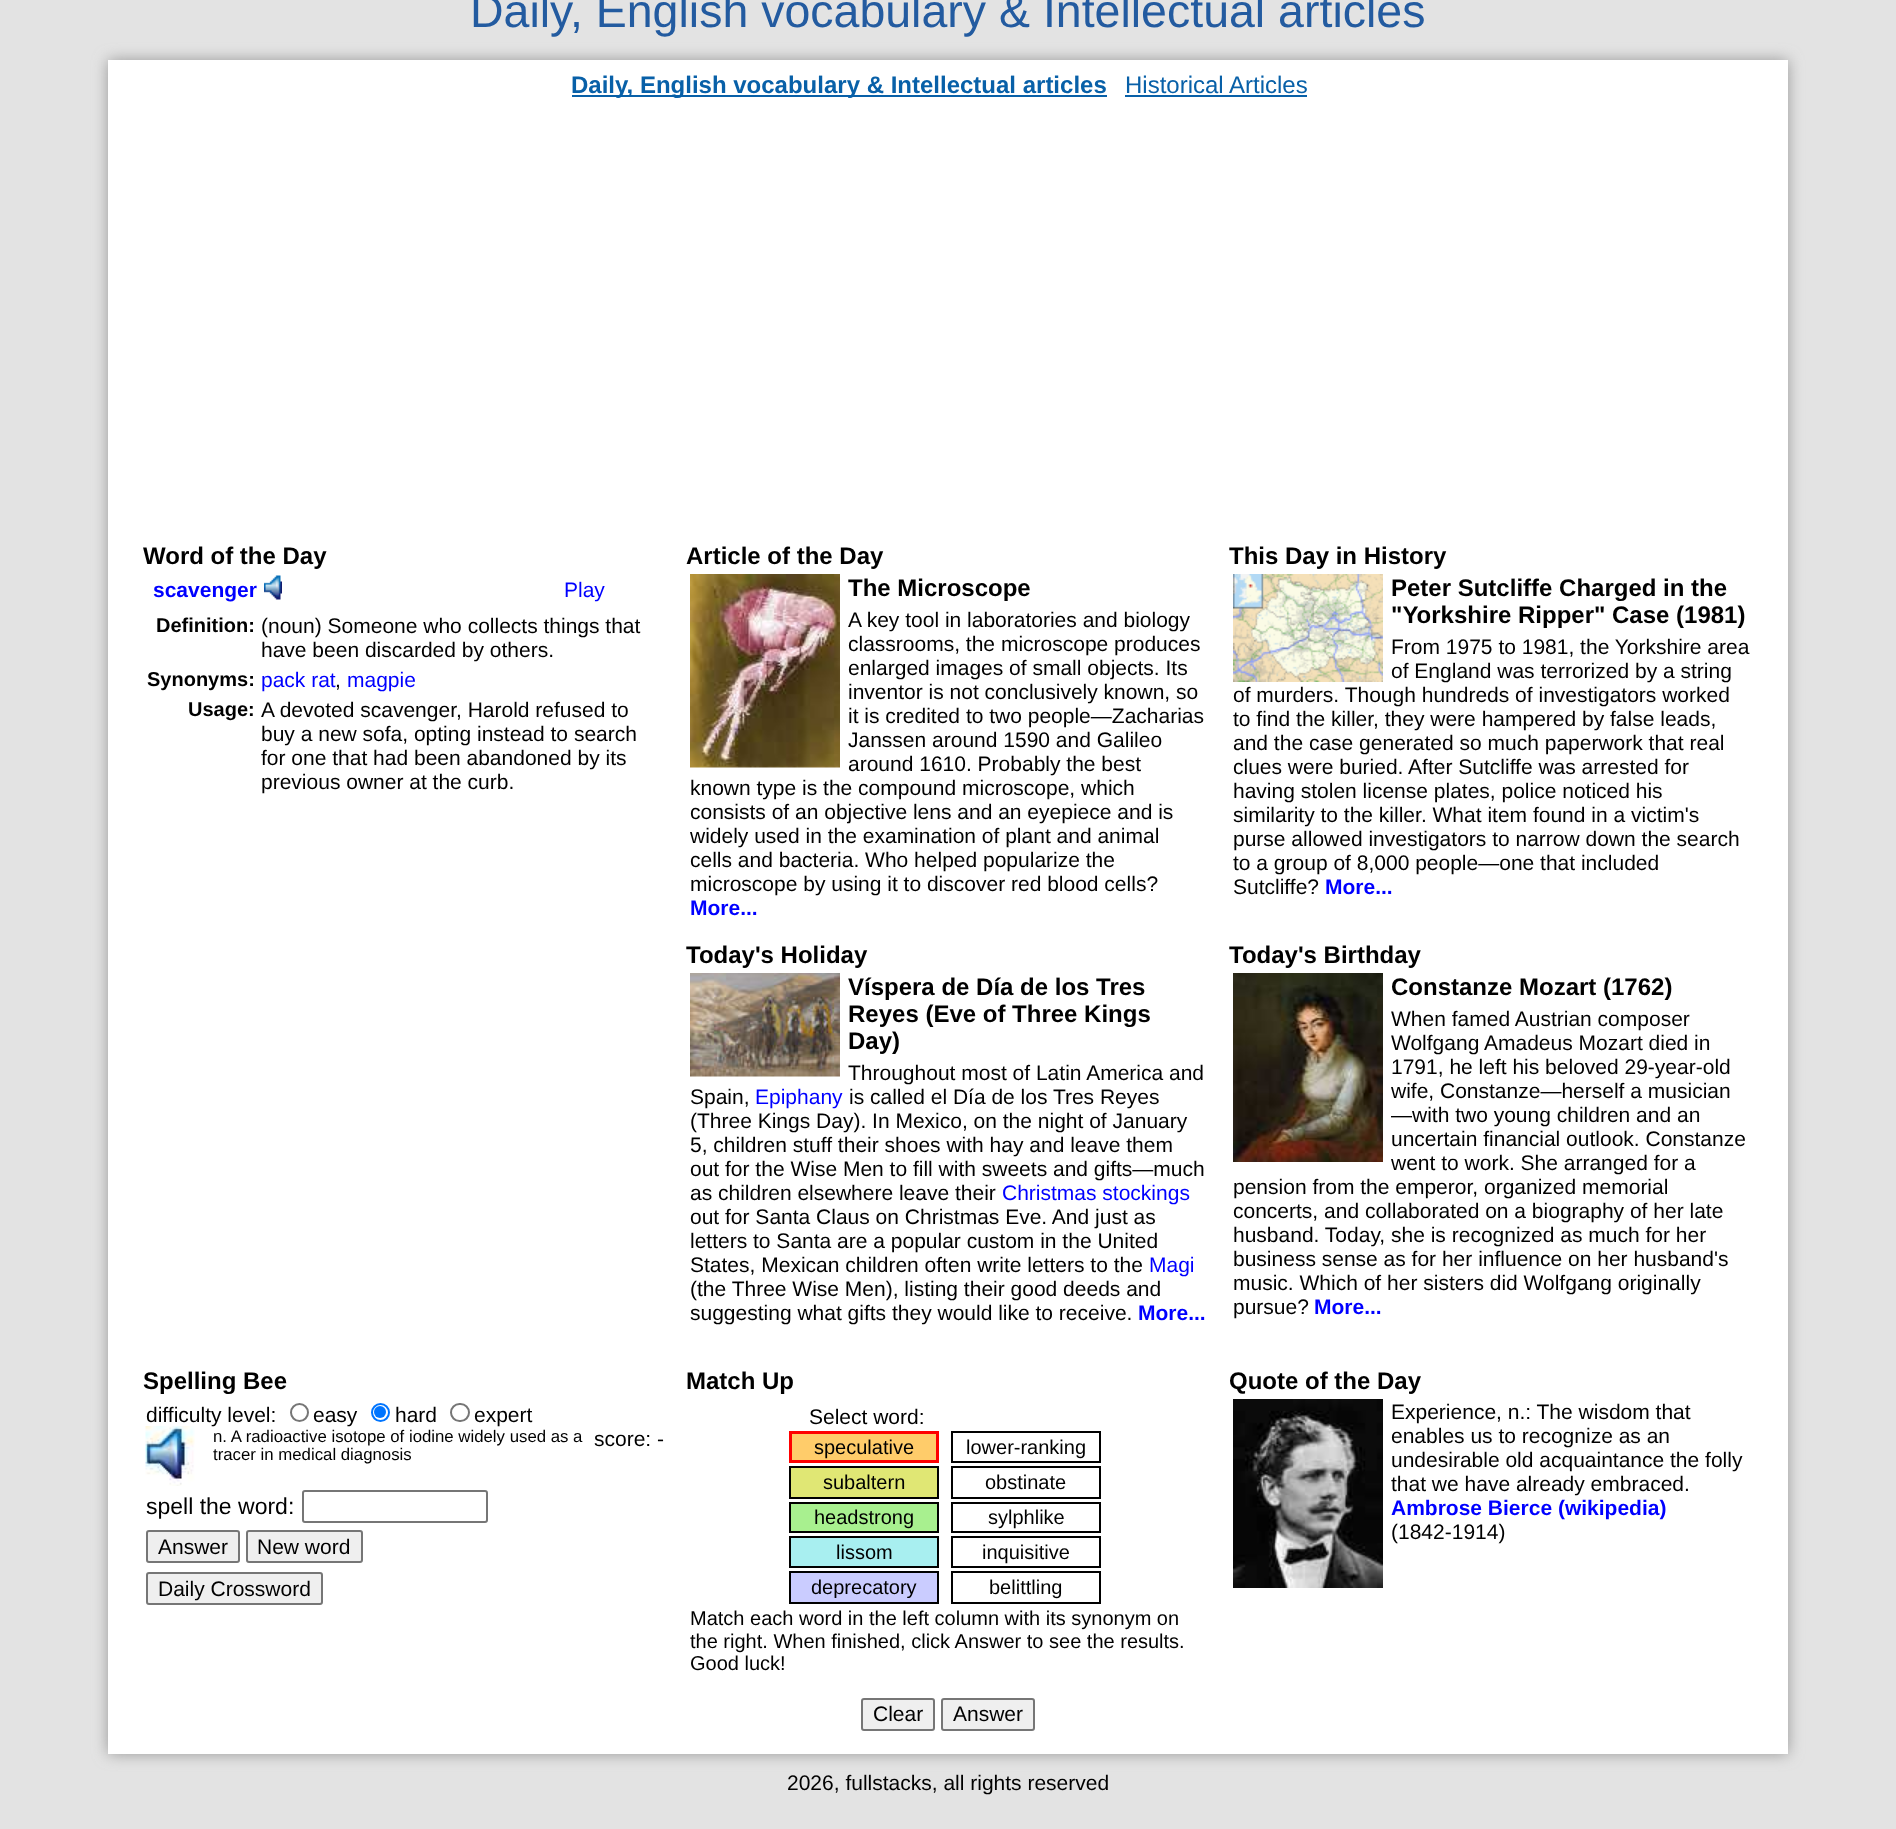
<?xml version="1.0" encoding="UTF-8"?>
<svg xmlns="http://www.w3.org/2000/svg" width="1896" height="1829">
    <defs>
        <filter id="blur1" x="-50%" y="-200%" width="200%" height="500%"><feGaussianBlur stdDeviation="7.5"/></filter>
        <clipPath id="clip1"><rect x="794" y="1575" width="141" height="23"/></clipPath>
    </defs>
    <rect width="100%" height="100%" fill="#E3E3E3"/>
    <rect x="108" y="60" width="1680" height="1694" fill="#999999" filter="url(#blur1)"/>
    <text x="470" y="27" font-family="Liberation Sans" font-size="46.5" fill="#235BA0">Daily, English vocabulary &amp; Intellectual articles</text>
    <rect x="108" y="60" width="1680" height="1694" fill="#FFFFFF"/>
    <rect x="572" y="95" width="535" height="2" fill="#0860A8"/>
    <text x="571" y="93" font-family="Liberation Sans" font-size="24" font-weight="700" fill="#0860A8">Daily, English vocabulary &amp; Intellectual articles</text>
    <text x="1125" y="93" font-family="Liberation Sans" font-size="24" fill="#0860A8">Historical Articles</text>
    <rect x="1125" y="95" width="182" height="2" fill="#0860A8"/>
    <text x="143" y="564" font-family="Liberation Sans" font-size="24" font-weight="700" fill="#000000">Word of the Day</text>
    <text x="153" y="597" font-family="Liberation Sans" font-size="21" font-weight="700" fill="#0000FF">scavenger</text>
    <image x="264" y="575" width="18" height="25" href="img_01.png"/>
    <text x="564" y="597" font-family="Liberation Sans" font-size="21" fill="#0000FF">Play</text>
    <text x="156" y="632" font-family="Liberation Sans" font-size="20" font-weight="700" fill="#000000">Definition:</text>
    <text font-family="Liberation Sans" font-size="21" fill="#000000">
        <tspan x="261" y="633">(noun) Someone who collects things that</tspan>
        <tspan x="261" y="657">have been discarded by others.</tspan>
    </text>
    <text x="147" y="686" font-family="Liberation Sans" font-size="20" font-weight="700" fill="#000000">Synonyms:</text>
    <text x="261" y="687" font-family="Liberation Sans" font-size="21" fill="#0000FF">pack rat</text>
    <text x="335" y="687" font-family="Liberation Sans" font-size="21" fill="#000000">,</text>
    <text x="347" y="687" font-family="Liberation Sans" font-size="21" fill="#0000FF">magpie</text>
    <text x="188" y="716" font-family="Liberation Sans" font-size="20" font-weight="700" fill="#000000">Usage:</text>
    <text font-family="Liberation Sans" font-size="21" fill="#000000">
        <tspan x="261" y="717">A devoted scavenger, Harold refused to</tspan>
        <tspan x="261" y="741">buy a new sofa, opting instead to search</tspan>
        <tspan x="261" y="765">for one that had been abandoned by its</tspan>
        <tspan x="261" y="789">previous owner at the curb.</tspan>
    </text>
    <text x="686" y="564" font-family="Liberation Sans" font-size="24" font-weight="700" fill="#000000">Article of the Day</text>
    <image x="690" y="574" width="150" height="194" href="img_02.png"/>
    <text x="848" y="596" font-family="Liberation Sans" font-size="24" font-weight="700" fill="#000000">The Microscope</text>
    <text font-family="Liberation Sans" font-size="21" fill="#000000">
        <tspan x="848" y="627">A key tool in laboratories and biology</tspan>
        <tspan x="848" y="651">classrooms, the microscope produces</tspan>
        <tspan x="848" y="675">enlarged images of small objects. Its</tspan>
        <tspan x="848" y="699">inventor is not conclusively known, so</tspan>
        <tspan x="848" y="723">it is credited to two people—Zacharias</tspan>
        <tspan x="848" y="747">Janssen around 1590 and Galileo</tspan>
        <tspan x="848" y="771">around 1610. Probably the best</tspan>
    </text>
    <text font-family="Liberation Sans" font-size="21" fill="#000000">
        <tspan x="690" y="795">known type is the compound microscope, which</tspan>
        <tspan x="690" y="819">consists of an objective lens and an eyepiece and is</tspan>
        <tspan x="690" y="843">widely used in the examination of plant and animal</tspan>
        <tspan x="690" y="867">cells and bacteria. Who helped popularize the</tspan>
        <tspan x="690" y="891">microscope by using it to discover red blood cells?</tspan>
    </text>
    <text x="690" y="915" font-family="Liberation Sans" font-size="21" font-weight="700" fill="#0000FF">More...</text>
    <text x="1229" y="564" font-family="Liberation Sans" font-size="24" font-weight="700" fill="#000000">This Day in History</text>
    <image x="1233" y="574" width="150" height="108" href="img_03.png"/>
    <text font-family="Liberation Sans" font-size="24" font-weight="700" fill="#000000">
        <tspan x="1391" y="596">Peter Sutcliffe Charged in the</tspan>
        <tspan x="1391" y="623">"Yorkshire Ripper" Case (1981)</tspan>
    </text>
    <text font-family="Liberation Sans" font-size="21" fill="#000000">
        <tspan x="1391" y="654">From 1975 to 1981, the Yorkshire area</tspan>
        <tspan x="1391" y="678">of England was terrorized by a string</tspan>
    </text>
    <text font-family="Liberation Sans" font-size="21" fill="#000000">
        <tspan x="1233" y="702">of murders. Though hundreds of investigators worked</tspan>
        <tspan x="1233" y="726">to find the killer, they were hampered by false leads,</tspan>
        <tspan x="1233" y="750">and the case generated so much paperwork that real</tspan>
        <tspan x="1233" y="774">clues were buried. After Sutcliffe was arrested for</tspan>
        <tspan x="1233" y="798">having stolen license plates, police noticed his</tspan>
        <tspan x="1233" y="822">similarity to the killer. What item found in a victim's</tspan>
        <tspan x="1233" y="846">purse allowed investigators to narrow down the search</tspan>
        <tspan x="1233" y="870">to a group of 8,000 people—one that included</tspan>
        <tspan x="1233" y="894">Sutcliffe?</tspan>
    </text>
    <text x="1325" y="894" font-family="Liberation Sans" font-size="21" font-weight="700" fill="#0000FF">More...</text>
    <text x="686" y="963" font-family="Liberation Sans" font-size="24" font-weight="700" fill="#000000">Today's Holiday</text>
    <image x="690" y="973" width="150" height="104" href="img_04.png"/>
    <text font-family="Liberation Sans" font-size="24" font-weight="700" fill="#000000">
        <tspan x="848" y="995">Víspera de Día de los Tres</tspan>
        <tspan x="848" y="1022">Reyes (Eve of Three Kings</tspan>
        <tspan x="848" y="1049">Day)</tspan>
    </text>
    <text x="848" y="1080" font-family="Liberation Sans" font-size="21" fill="#000000">Throughout most of Latin America and</text>
    <text x="690" y="1104" font-family="Liberation Sans" font-size="21" fill="#000000">Spain,</text>
    <text x="755" y="1104" font-family="Liberation Sans" font-size="21" fill="#0000FF">Epiphany</text>
    <text x="849" y="1104" font-family="Liberation Sans" font-size="21" fill="#000000">is called el Día de los Tres Reyes</text>
    <text font-family="Liberation Sans" font-size="21" fill="#000000">
        <tspan x="690" y="1128">(Three Kings Day). In Mexico, on the night of January</tspan>
        <tspan x="690" y="1152">5, children stuff their shoes with hay and leave them</tspan>
        <tspan x="690" y="1176">out for the Wise Men to fill with sweets and gifts—much</tspan>
        <tspan x="690" y="1200">as children elsewhere leave their</tspan>
    </text>
    <text x="1002" y="1200" font-family="Liberation Sans" font-size="21" fill="#0000FF">Christmas stockings</text>
    <text font-family="Liberation Sans" font-size="21" fill="#000000">
        <tspan x="690" y="1224">out for Santa Claus on Christmas Eve. And just as</tspan>
        <tspan x="690" y="1248">letters to Santa are a popular custom in the United</tspan>
        <tspan x="690" y="1272">States, Mexican children often write letters to the</tspan>
    </text>
    <text x="1149" y="1272" font-family="Liberation Sans" font-size="21" fill="#0000FF">Magi</text>
    <text font-family="Liberation Sans" font-size="21" fill="#000000">
        <tspan x="690" y="1296">(the Three Wise Men), listing their good deeds and</tspan>
        <tspan x="690" y="1320">suggesting what gifts they would like to receive.</tspan>
    </text>
    <text x="1138" y="1320" font-family="Liberation Sans" font-size="21" font-weight="700" fill="#0000FF">More...</text>
    <text x="1229" y="963" font-family="Liberation Sans" font-size="24" font-weight="700" fill="#000000">Today's Birthday</text>
    <image x="1233" y="973" width="150" height="189" href="img_05.png"/>
    <text x="1391" y="995" font-family="Liberation Sans" font-size="24" font-weight="700" fill="#000000">Constanze Mozart (1762)</text>
    <text font-family="Liberation Sans" font-size="21" fill="#000000">
        <tspan x="1391" y="1026">When famed Austrian composer</tspan>
        <tspan x="1391" y="1050">Wolfgang Amadeus Mozart died in</tspan>
        <tspan x="1391" y="1074">1791, he left his beloved 29-year-old</tspan>
        <tspan x="1391" y="1098">wife, Constanze—herself a musician</tspan>
        <tspan x="1391" y="1122">—with two young children and an</tspan>
        <tspan x="1391" y="1146">uncertain financial outlook. Constanze</tspan>
        <tspan x="1391" y="1170">went to work. She arranged for a</tspan>
    </text>
    <text font-family="Liberation Sans" font-size="21" fill="#000000">
        <tspan x="1233" y="1194">pension from the emperor, organized memorial</tspan>
        <tspan x="1233" y="1218">concerts, and collaborated on a biography of her late</tspan>
        <tspan x="1233" y="1242">husband. Today, she is recognized as much for her</tspan>
        <tspan x="1233" y="1266">business sense as for her influence on her husband's</tspan>
        <tspan x="1233" y="1290">music. Which of her sisters did Wolfgang originally</tspan>
        <tspan x="1233" y="1314">pursue?</tspan>
    </text>
    <text x="1314" y="1314" font-family="Liberation Sans" font-size="21" font-weight="700" fill="#0000FF">More...</text>
    <text x="143" y="1389" font-family="Liberation Sans" font-size="24" font-weight="700" fill="#000000">Spelling Bee</text>
    <image x="145" y="1426" width="50" height="60" href="img_06.png"/>
    <text x="146" y="1422" font-family="Liberation Sans" font-size="21" fill="#000000">difficulty level:</text>
    <circle cx="299.5" cy="1412.5" r="8.5" fill="none" stroke="#767676" stroke-width="2"/>
    <text x="313" y="1422" font-family="Liberation Sans" font-size="21" fill="#000000">easy</text>
    <circle cx="380.5" cy="1412.5" r="8.5" fill="none" stroke="#0075FF" stroke-width="2"/>
    <circle cx="380" cy="1412" r="6" fill="#0075FF"/>
    <text x="395" y="1422" font-family="Liberation Sans" font-size="21" fill="#000000">hard</text>
    <rect x="451" y="1404" width="18" height="17" rx="8.5" fill="none" stroke="#767676" stroke-width="2"/>
    <text x="474" y="1422" font-family="Liberation Sans" font-size="21" fill="#000000">expert</text>
    <text font-family="Liberation Sans" font-size="16.8" fill="#000000">
        <tspan x="213" y="1442">n. A radioactive isotope of iodine widely used as a</tspan>
        <tspan x="213" y="1460">tracer in medical diagnosis</tspan>
    </text>
    <text x="594" y="1446" font-family="Liberation Sans" font-size="21" fill="#000000">score: -</text>
    <text x="146" y="1514" font-family="Liberation Sans" font-size="23" fill="#000000">spell the word:</text>
    <rect x="303" y="1491" width="184" height="31" rx="2" fill="none" stroke="#767676" stroke-width="2"/>
    <rect x="147" y="1531" width="92" height="31" rx="2" fill="#EFEFEF" stroke="#767676" stroke-width="2"/>
    <text x="158" y="1554" font-family="Liberation Sans" font-size="21" fill="#000000">Answer</text>
    <rect x="247" y="1531" width="115" height="31" rx="2" fill="#EFEFEF" stroke="#767676" stroke-width="2"/>
    <text x="257" y="1554" font-family="Liberation Sans" font-size="21" fill="#000000">New word</text>
    <rect x="147" y="1573" width="175" height="31" rx="2" fill="#EFEFEF" stroke="#767676" stroke-width="2"/>
    <text x="158" y="1596" font-family="Liberation Sans" font-size="21" fill="#000000">Daily Crossword</text>
    <text x="686" y="1389" font-family="Liberation Sans" font-size="24" font-weight="700" fill="#000000">Match Up</text>
    <text x="809" y="1424" font-family="Liberation Sans" font-size="21" fill="#000000">Select word:</text>
    <rect x="790.5" y="1432.5" width="147" height="29" fill="#FFCC6A" stroke="#FF0000" stroke-width="3"/>
    <text x="814" y="1454" font-family="Liberation Sans" font-size="20" fill="#000000">speculative</text>
    <rect x="790" y="1467" width="148" height="31" fill="#E0E774" stroke="#000000" stroke-width="2"/>
    <text x="823" y="1489" font-family="Liberation Sans" font-size="20" fill="#000000">subaltern</text>
    <rect x="790" y="1503" width="148" height="29" fill="#A8F08F" stroke="#000000" stroke-width="2"/>
    <text x="814" y="1524" font-family="Liberation Sans" font-size="20" fill="#000000">headstrong</text>
    <rect x="790" y="1537" width="148" height="30" fill="#A8EFF0" stroke="#000000" stroke-width="2"/>
    <text x="836" y="1559" font-family="Liberation Sans" font-size="20" fill="#000000">lissom</text>
    <rect x="790" y="1572" width="148" height="31" fill="#CACCFF" stroke="#000000" stroke-width="2"/>
    <g clip-path="url(#clip1)">
        <text x="811" y="1594" font-family="Liberation Sans" font-size="20" fill="#000000">deprecatory</text>
    </g>
    <rect x="952" y="1432" width="148" height="30" fill="none" stroke="#000000" stroke-width="2"/>
    <text x="966" y="1454" font-family="Liberation Sans" font-size="20" fill="#000000">lower-ranking</text>
    <rect x="952" y="1467" width="148" height="31" fill="none" stroke="#000000" stroke-width="2"/>
    <text x="985" y="1489" font-family="Liberation Sans" font-size="20" fill="#000000">obstinate</text>
    <rect x="952" y="1503" width="148" height="29" fill="none" stroke="#000000" stroke-width="2"/>
    <text x="988" y="1524" font-family="Liberation Sans" font-size="20" fill="#000000">sylphlike</text>
    <rect x="952" y="1537" width="148" height="30" fill="none" stroke="#000000" stroke-width="2"/>
    <text x="982" y="1559" font-family="Liberation Sans" font-size="20" fill="#000000">inquisitive</text>
    <rect x="952" y="1572" width="148" height="31" fill="none" stroke="#000000" stroke-width="2"/>
    <text x="989" y="1594" font-family="Liberation Sans" font-size="20" fill="#000000">belittling</text>
    <text font-family="Liberation Sans" font-size="20" fill="#000000">
        <tspan x="690" y="1625">Match each word in the left column with its synonym on</tspan>
        <tspan x="690" y="1648">the right. When finished, click Answer to see the results.</tspan>
        <tspan x="690" y="1670">Good luck!</tspan>
    </text>
    <rect x="862" y="1699" width="72" height="31" rx="2" fill="#EFEFEF" stroke="#767676" stroke-width="2"/>
    <text x="873" y="1721" font-family="Liberation Sans" font-size="21" fill="#000000">Clear</text>
    <rect x="942" y="1699" width="92" height="31" rx="2" fill="#EFEFEF" stroke="#767676" stroke-width="2"/>
    <text x="953" y="1721" font-family="Liberation Sans" font-size="21" fill="#000000">Answer</text>
    <text x="1229" y="1389" font-family="Liberation Sans" font-size="24" font-weight="700" fill="#000000">Quote of the Day</text>
    <image x="1233" y="1399" width="150" height="189" href="img_07.png"/>
    <text font-family="Liberation Sans" font-size="21" fill="#000000">
        <tspan x="1391" y="1419">Experience, n.: The wisdom that</tspan>
        <tspan x="1391" y="1443">enables us to recognize as an</tspan>
        <tspan x="1391" y="1467">undesirable old acquaintance the folly</tspan>
        <tspan x="1391" y="1491">that we have already embraced.</tspan>
    </text>
    <text x="1391" y="1515" font-family="Liberation Sans" font-size="21" font-weight="700" fill="#0000FF">Ambrose Bierce (wikipedia)</text>
    <text x="1391" y="1539" font-family="Liberation Sans" font-size="21" fill="#000000">(1842-1914)</text>
    <text x="787" y="1790" font-family="Liberation Sans" font-size="21" fill="#000000">2026, fullstacks, all rights reserved</text>
</svg>
